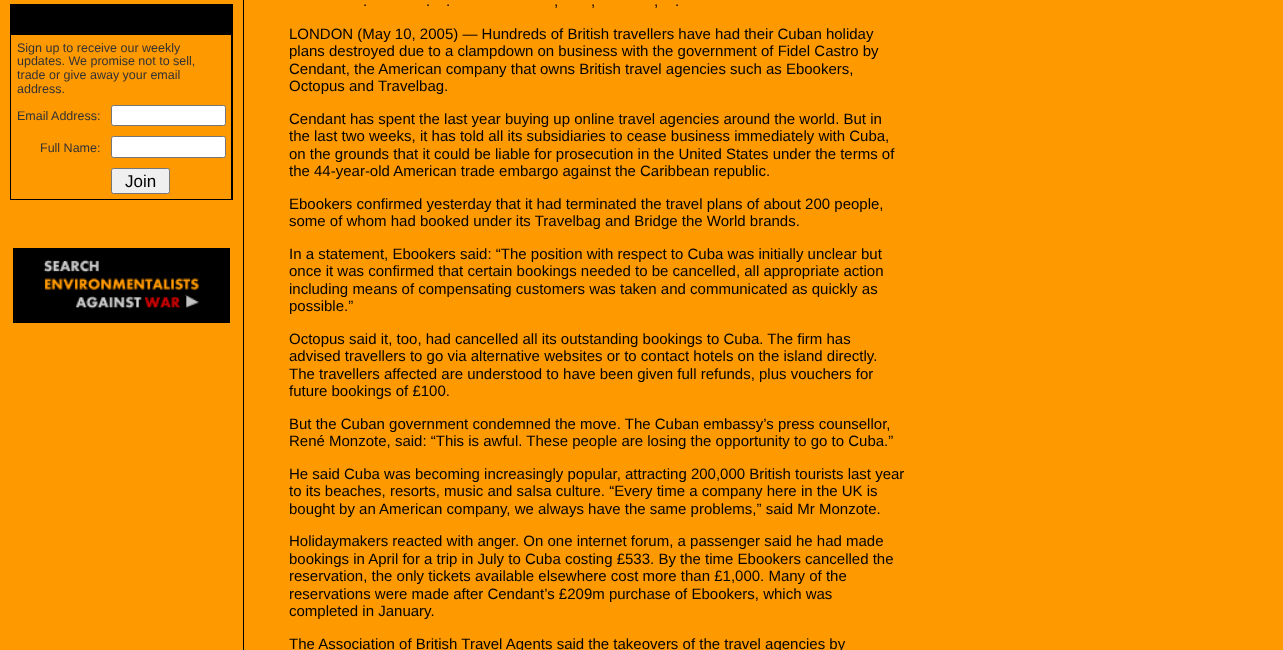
<?xml version="1.0" encoding="UTF-8"?>
<svg xmlns="http://www.w3.org/2000/svg" width="1283" height="650">
    <rect width="100%" height="100%" fill="#FF9900"/>
    <rect x="10" y="4" width="223" height="196" fill="#000000"/>
    <rect x="11" y="35" width="220" height="164" fill="#FF9900"/>
    <text font-family="Liberation Sans" font-size="12.5" fill="#333333">
        <tspan x="17" y="52">Sign up to receive our weekly</tspan>
        <tspan x="17" y="65">updates. We promise not to sell,</tspan>
        <tspan x="17" y="79">trade or give away your email</tspan>
        <tspan x="17" y="93">address.</tspan>
    </text>
    <text x="17" y="120" font-family="Liberation Sans" font-size="12.5" fill="#333333">Email Address:</text>
    <rect x="111.5" y="105.5" width="114" height="20" rx="2" fill="#FFFFFF" stroke="#767676"/>
    <text x="40" y="152" font-family="Liberation Sans" font-size="12.5" fill="#333333">Full Name:</text>
    <rect x="111.5" y="136.5" width="114" height="21" rx="2" fill="#FFFFFF" stroke="#767676"/>
    <rect x="111.5" y="168.5" width="58" height="25" rx="2" fill="#EFEFEF" stroke="#767676"/>
    <text x="125" y="187" font-family="Liberation Sans" font-size="17" fill="#000000">Join</text>
    <rect x="13" y="248" width="217" height="75" fill="#000000"/>
    <image x="43" y="259" width="156" height="50" href="img_01.png"/>
    <rect x="243" y="0" width="1" height="650" fill="#000000"/>
    <text x="363" y="6" font-family="Liberation Sans" font-size="15" fill="#000000">.</text>
    <text x="426" y="6" font-family="Liberation Sans" font-size="15" fill="#000000">.</text>
    <text x="446" y="6" font-family="Liberation Sans" font-size="15" fill="#000000">.</text>
    <text x="554" y="6" font-family="Liberation Sans" font-size="15" fill="#000000">,</text>
    <text x="591" y="6" font-family="Liberation Sans" font-size="15" fill="#000000">,</text>
    <text x="654" y="6" font-family="Liberation Sans" font-size="15" fill="#000000">,</text>
    <text x="675" y="6" font-family="Liberation Sans" font-size="15" fill="#000000">.</text>
    <text font-family="Liberation Sans" font-size="15" fill="#000000">
        <tspan x="289" y="39">LONDON (May 10, 2005) — Hundreds of British travellers have had their Cuban holiday</tspan>
        <tspan x="289" y="56">plans destroyed due to a clampdown on business with the government of Fidel Castro by</tspan>
        <tspan x="289" y="74">Cendant, the American company that owns British travel agencies such as Ebookers,</tspan>
        <tspan x="289" y="91">Octopus and Travelbag.</tspan>
    </text>
    <text font-family="Liberation Sans" font-size="15" fill="#000000">
        <tspan x="289" y="124">Cendant has spent the last year buying up online travel agencies around the world. But in</tspan>
        <tspan x="289" y="141">the last two weeks, it has told all its subsidiaries to cease business immediately with Cuba,</tspan>
        <tspan x="289" y="159">on the grounds that it could be liable for prosecution in the United States under the terms of</tspan>
        <tspan x="289" y="176">the 44-year-old American trade embargo against the Caribbean republic.</tspan>
    </text>
    <text font-family="Liberation Sans" font-size="15" fill="#000000">
        <tspan x="289" y="209">Ebookers confirmed yesterday that it had terminated the travel plans of about 200 people,</tspan>
        <tspan x="289" y="226">some of whom had booked under its Travelbag and Bridge the World brands.</tspan>
    </text>
    <text font-family="Liberation Sans" font-size="15" fill="#000000">
        <tspan x="289" y="259">In a statement, Ebookers said: “The position with respect to Cuba was initially unclear but</tspan>
        <tspan x="289" y="276">once it was confirmed that certain bookings needed to be cancelled, all appropriate action</tspan>
        <tspan x="289" y="294">including means of compensating customers was taken and communicated as quickly as</tspan>
        <tspan x="289" y="311">possible.”</tspan>
    </text>
    <text font-family="Liberation Sans" font-size="15" fill="#000000">
        <tspan x="289" y="344">Octopus said it, too, had cancelled all its outstanding bookings to Cuba. The firm has</tspan>
        <tspan x="289" y="361">advised travellers to go via alternative websites or to contact hotels on the island directly.</tspan>
        <tspan x="289" y="379">The travellers affected are understood to have been given full refunds, plus vouchers for</tspan>
        <tspan x="289" y="396">future bookings of £100.</tspan>
    </text>
    <text font-family="Liberation Sans" font-size="15" fill="#000000">
        <tspan x="289" y="429">But the Cuban government condemned the move. The Cuban embassy’s press counsellor,</tspan>
        <tspan x="289" y="446">René Monzote, said: “This is awful. These people are losing the opportunity to go to Cuba.”</tspan>
    </text>
    <text font-family="Liberation Sans" font-size="15" fill="#000000">
        <tspan x="289" y="479">He said Cuba was becoming increasingly popular, attracting 200,000 British tourists last year</tspan>
        <tspan x="289" y="496">to its beaches, resorts, music and salsa culture. “Every time a company here in the UK is</tspan>
        <tspan x="289" y="514">bought by an American company, we always have the same problems,” said Mr Monzote.</tspan>
    </text>
    <text font-family="Liberation Sans" font-size="15" fill="#000000">
        <tspan x="289" y="546">Holidaymakers reacted with anger. On one internet forum, a passenger said he had made</tspan>
        <tspan x="289" y="564">bookings in April for a trip in July to Cuba costing £533. By the time Ebookers cancelled the</tspan>
        <tspan x="289" y="581">reservation, the only tickets available elsewhere cost more than £1,000. Many of the</tspan>
        <tspan x="289" y="599">reservations were made after Cendant’s £209m purchase of Ebookers, which was</tspan>
        <tspan x="289" y="616">completed in January.</tspan>
    </text>
    <text x="289" y="649" font-family="Liberation Sans" font-size="15" fill="#000000">The Association of British Travel Agents said the takeovers of the travel agencies by</text>
</svg>
